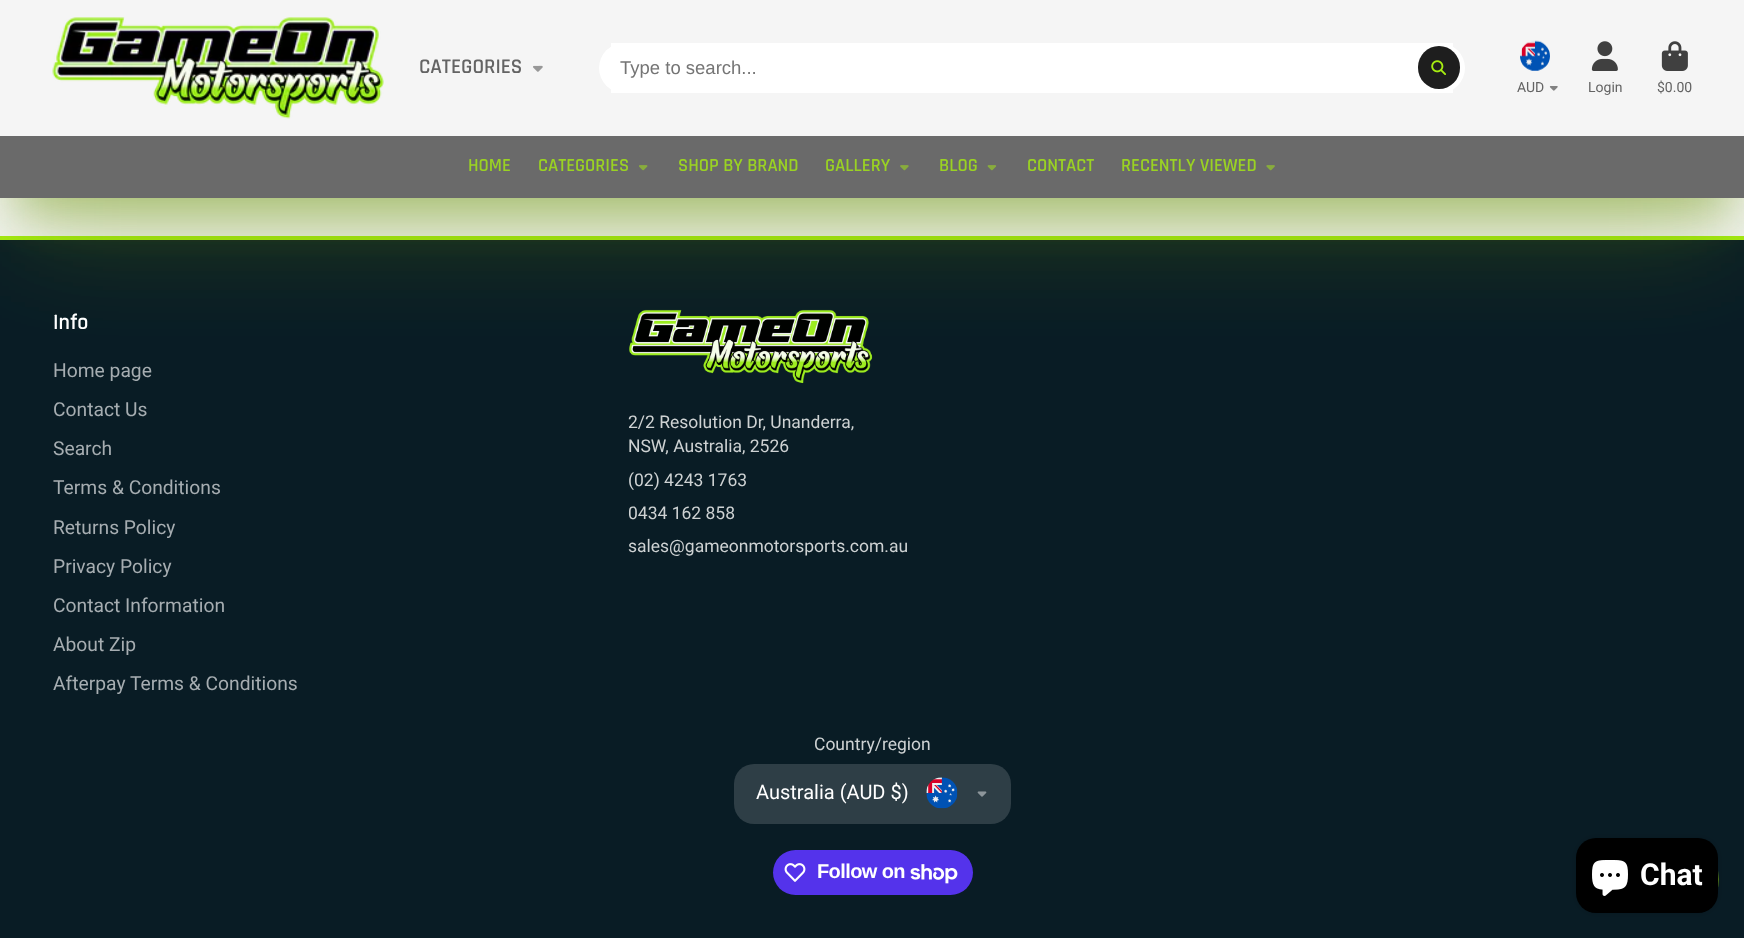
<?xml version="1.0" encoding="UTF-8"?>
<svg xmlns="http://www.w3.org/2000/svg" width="1744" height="938">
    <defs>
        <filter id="blur1" x="-50%" y="-200%" width="200%" height="500%"><feGaussianBlur stdDeviation="24"/></filter>
        <filter id="blur2" x="-50%" y="-200%" width="200%" height="500%"><feGaussianBlur stdDeviation="54.5"/></filter>
        <filter id="blur3" x="-50%" y="-200%" width="200%" height="500%"><feGaussianBlur stdDeviation="3"/></filter>
    </defs>
    <rect width="100%" height="100%" fill="#F5F5F5"/>
    <rect x="0" y="240" width="1744" height="698" fill="#091C25"/>
    <rect x="0" y="236" width="1744" height="4" fill="#A6EC11"/>
    <rect x="18" y="50" width="1710" height="163" fill="#68920F" fill-opacity="0.4" filter="url(#blur1)"/>
    <image x="629" y="309" width="244" height="75" href="img_12.png"/>
    <rect x="18" y="73" width="1710" height="162" fill="#68920F" fill-opacity="0.3" filter="url(#blur2)"/>
    <rect x="0" y="0" width="1744" height="136" fill="#F5F5F5"/>
    <image x="52" y="17" width="332" height="102" href="img_01.png"/>
    <text x="419" y="73" font-family="Rajdhani" font-size="21" font-weight="600" fill="#646464">CATEGORIES</text>
    <image x="533" y="65" width="10" height="7" href="img_02.png"/>
    <rect x="611" y="43" width="842" height="50" fill="#FFFFFF"/>
    <rect x="599" y="43" width="866" height="50" rx="25" fill="#FFFFFF"/>
    <text x="620" y="74" font-family="Liberation Sans" font-size="18.5" fill="#757575">Type to search...</text>
    <rect x="1418" y="46" width="42" height="43" rx="21" fill="#1E1E1E"/>
    <image x="1431" y="60" width="15" height="15" href="img_03.png"/>
    <image x="1520" y="40" width="30" height="31" href="img_04.png"/>
    <text x="1517" y="92" font-family="Roboto" font-size="14" fill="#646464">AUD</text>
    <image x="1549" y="86" width="9" height="5" href="img_05.png"/>
    <image x="1591" y="41" width="27" height="30" href="img_06.png"/>
    <text x="1588" y="92" font-family="Roboto" font-size="14" fill="#646464">Login</text>
    <image x="1661" y="41" width="27" height="30" href="img_07.png"/>
    <text x="1657" y="92" font-family="Roboto" font-size="14" fill="#646464">$0.00</text>
    <rect x="0" y="136" width="1744" height="62" fill="#6A6A6A"/>
    <text x="468" y="171" font-family="Rajdhani" font-size="18.5" font-weight="600" fill="#9AD223">HOME</text>
    <text x="538" y="171" font-family="Rajdhani" font-size="18.5" font-weight="600" fill="#9AD223">CATEGORIES</text>
    <image x="639" y="165" width="9" height="6" href="img_08.png"/>
    <text x="678" y="171" font-family="Rajdhani" font-size="18.5" font-weight="600" fill="#9AD223">SHOP BY BRAND</text>
    <text x="825" y="171" font-family="Rajdhani" font-size="18.5" font-weight="600" fill="#9AD223">GALLERY</text>
    <image x="900" y="165" width="9" height="6" href="img_09.png"/>
    <text x="939" y="171" font-family="Rajdhani" font-size="18.5" font-weight="600" fill="#9AD223">BLOG</text>
    <image x="987" y="165" width="10" height="6" href="img_10.png"/>
    <text x="1027" y="171" font-family="Rajdhani" font-size="18.5" font-weight="600" fill="#9AD223">CONTACT</text>
    <text x="1121" y="171" font-family="Rajdhani" font-size="18.5" font-weight="600" fill="#9AD223">RECENTLY VIEWED</text>
    <image x="1266" y="165" width="9" height="6" href="img_11.png"/>
    <text x="53" y="329" font-family="Rajdhani" font-size="22" font-weight="600" fill="#FFFFFF">Info</text>
    <text x="53" y="377" font-family="Roboto" font-size="19.25" fill="#A6ADB1">Home page</text>
    <text x="53" y="416" font-family="Roboto" font-size="19.25" fill="#A6ADB1">Contact Us</text>
    <text x="53" y="455" font-family="Roboto" font-size="19.25" fill="#A6ADB1">Search</text>
    <text x="53" y="494" font-family="Roboto" font-size="19.25" fill="#A6ADB1">Terms &amp; Conditions</text>
    <text x="53" y="534" font-family="Roboto" font-size="19.25" fill="#A6ADB1">Returns Policy</text>
    <text x="53" y="573" font-family="Roboto" font-size="19.25" fill="#A6ADB1">Privacy Policy</text>
    <text x="53" y="612" font-family="Roboto" font-size="19.25" fill="#A6ADB1">Contact Information</text>
    <text x="53" y="651" font-family="Roboto" font-size="19.25" fill="#A6ADB1">About Zip</text>
    <text x="53" y="690" font-family="Roboto" font-size="19.25" fill="#A6ADB1">Afterpay Terms &amp; Conditions</text>
    <text font-family="Roboto" font-size="17.5" fill="#CED2D3">
        <tspan x="628" y="428">2/2 Resolution Dr, Unanderra,</tspan>
        <tspan x="628" y="452">NSW, Australia, 2526</tspan>
        <tspan x="628" y="486">(02) 4243 1763</tspan>
        <tspan x="628" y="519">0434 162 858</tspan>
        <tspan x="628" y="552">sales@gameonmotorsports.com.au</tspan>
    </text>
    <text x="814" y="750" font-family="Roboto" font-size="17.5" fill="#CED2D3">Country/region</text>
    <rect x="734" y="764" width="277" height="60" rx="20" fill="#2E3E46"/>
    <text x="756" y="799" font-family="Roboto" font-size="20" fill="#FFFFFF">Australia (AUD $)</text>
    <image x="926" y="777" width="32" height="32" href="img_13.png"/>
    <image x="977" y="791" width="10" height="6" href="img_14.png"/>
    <rect x="773" y="850" width="200" height="45" rx="22.5" fill="#5433EB"/>
    <image x="784" y="863" width="22" height="19" href="img_15.png"/>
    <text x="817" y="878" font-family="Liberation Sans" font-size="20" font-weight="700" letter-spacing="-0.6" fill="#FFFFFF">Follow on</text>
    <image x="910" y="864" width="48" height="20" href="img_16.png"/>
    <rect x="1653" y="846" width="66" height="67" rx="33" fill="#507618"/>
    <rect x="1576" y="838" width="142" height="75" rx="20" fill="#000000" fill-opacity="0.15" filter="url(#blur3)"/>
    <rect x="1576" y="838" width="142" height="75" rx="20" fill="#000000"/>
    <image x="1592" y="860" width="36" height="36" href="img_17.png"/>
    <text x="1640" y="885" font-family="Roboto" font-size="30" font-weight="700" fill="#FFFFFF">Chat</text>
</svg>
